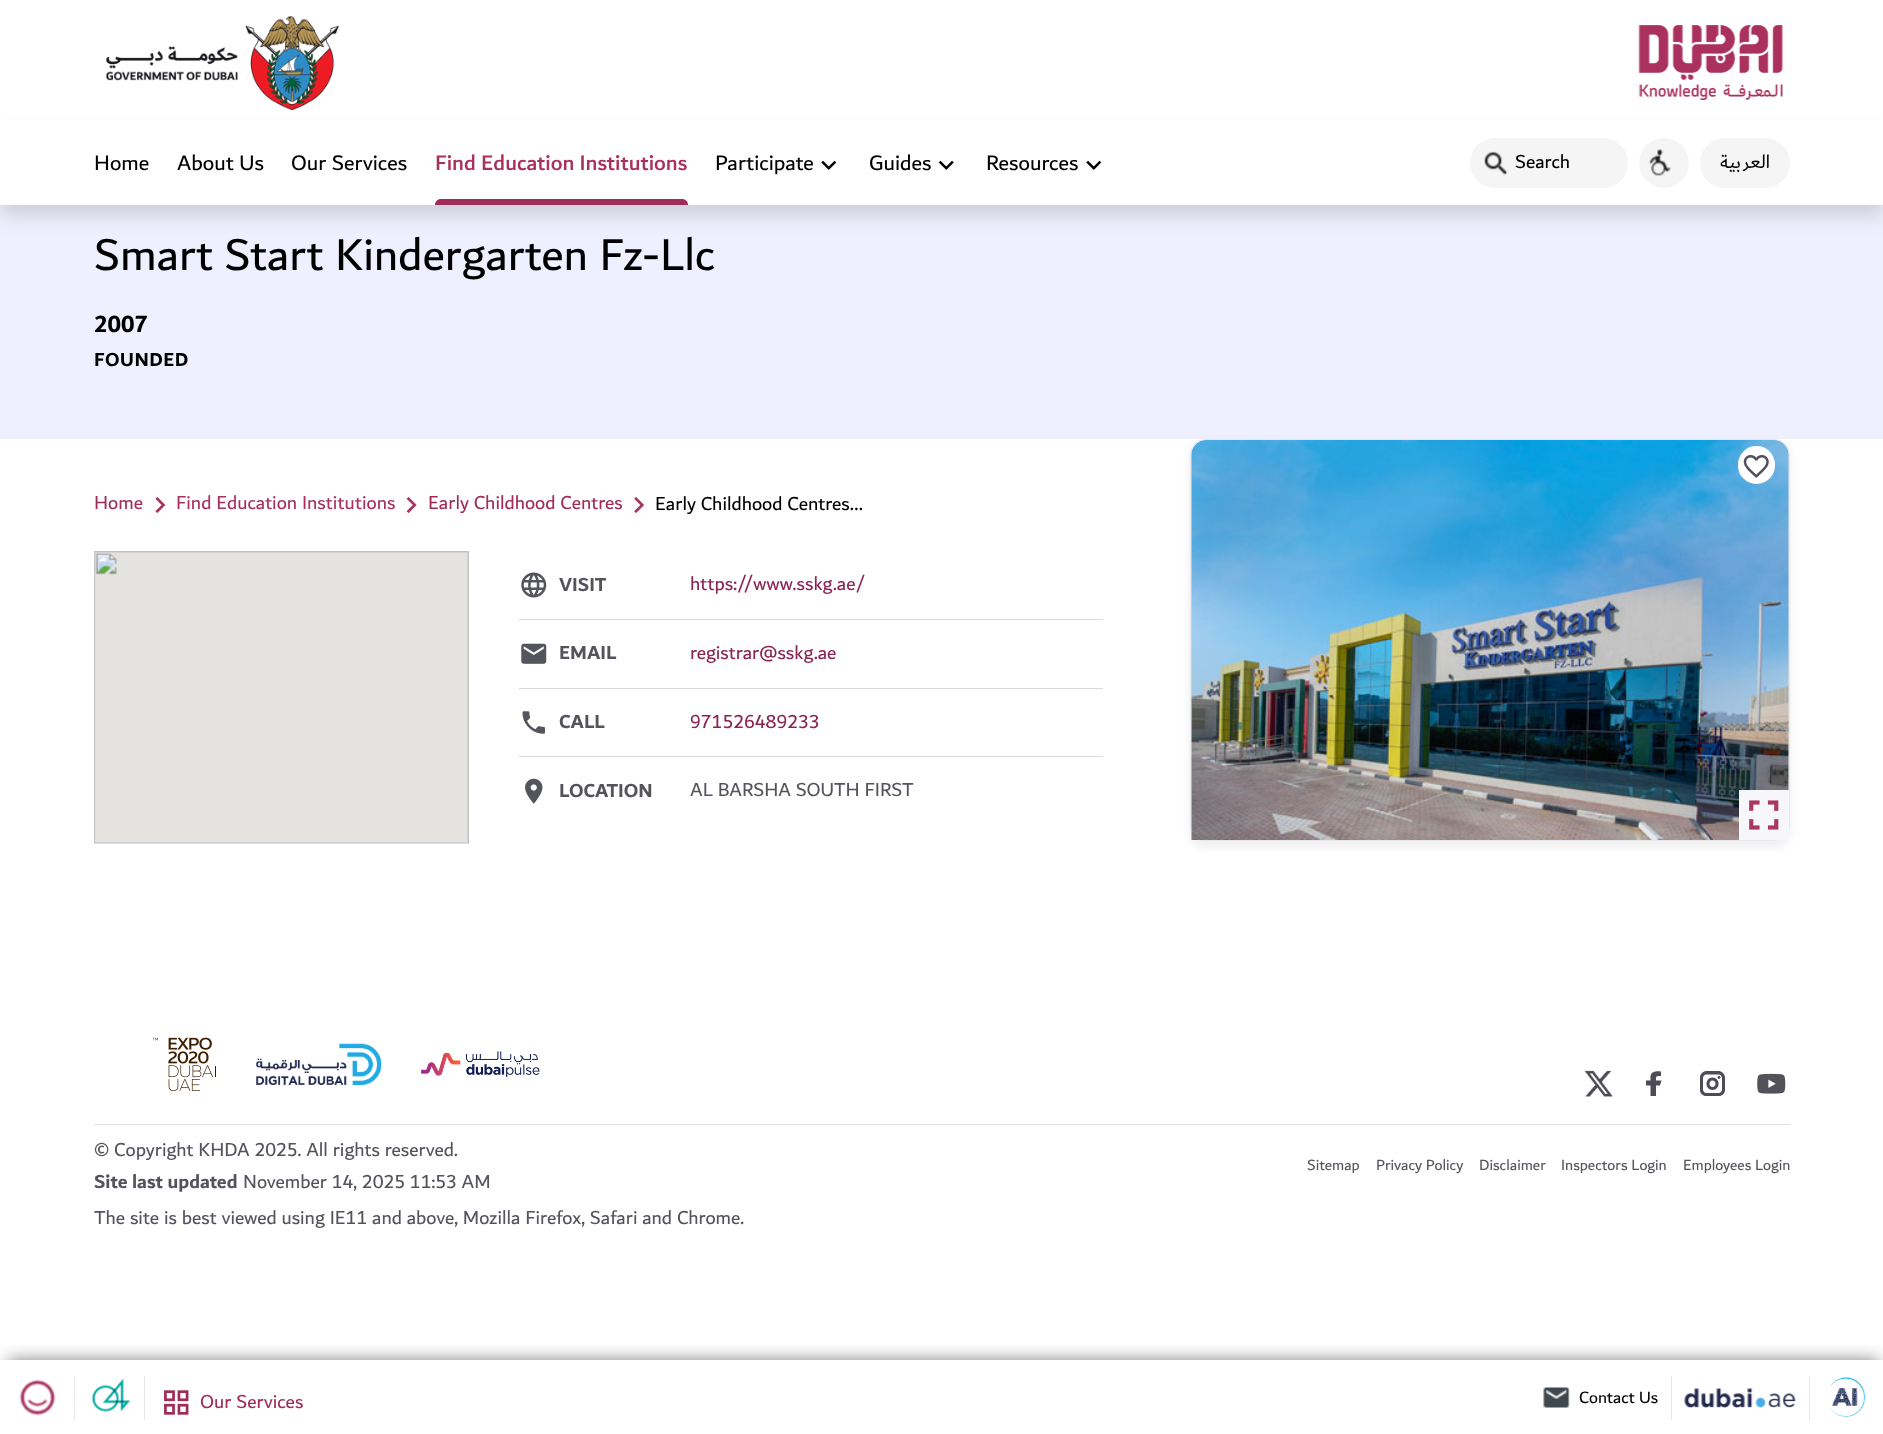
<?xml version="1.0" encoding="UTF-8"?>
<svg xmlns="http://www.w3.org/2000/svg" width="1883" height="1434">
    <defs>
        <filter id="blur1" x="-50%" y="-200%" width="200%" height="500%"><feGaussianBlur stdDeviation="10"/></filter>
        <filter id="blur2" x="-50%" y="-200%" width="200%" height="500%"><feGaussianBlur stdDeviation="4"/></filter>
        <clipPath id="clip1"><rect x="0" y="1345" width="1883" height="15"/></clipPath>
        <filter id="blur3" x="-50%" y="-200%" width="200%" height="500%"><feGaussianBlur stdDeviation="9"/></filter>
    </defs>
    <rect width="100%" height="100%" fill="#FFFFFF"/>
    <rect x="0" y="205" width="1883" height="234" fill="#EEF0FF"/>
    <rect x="0" y="135" width="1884" height="80" fill="#000000" fill-opacity="0.15" filter="url(#blur1)"/>
    <image x="106" y="16" width="233" height="94" href="img_01.png"/>
    <image x="1638" y="25" width="145" height="75" href="img_02.png"/>
    <rect x="0" y="120" width="1883" height="85" fill="#FFFFFF"/>
    <text x="94" y="170" font-family="'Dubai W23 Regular'" font-size="22.5" fill="#000000">Home</text>
    <text x="177" y="170" font-family="'Dubai W23 Regular'" font-size="22.5" fill="#000000">About Us</text>
    <text x="291" y="170" font-family="'Dubai W23 Regular'" font-size="22.5" fill="#000000">Our Services</text>
    <text x="435" y="170" font-family="'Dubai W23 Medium'" font-size="22.5" font-weight="500" fill="#A9315E">Find Education Institutions</text>
    <path d="M 441 199 H 682 C 685.5 199 688 201.5 688 205 H 435 C 435 201.5 437.5 199 441 199 Z" fill="#9F2D57"/>
    <text x="715" y="170" font-family="'Dubai W23 Regular'" font-size="22.5" fill="#000000">Participate</text>
    <image x="821" y="160" width="16" height="10" href="img_03.png"/>
    <text x="869" y="170" font-family="'Dubai W23 Regular'" font-size="22.5" fill="#000000">Guides</text>
    <image x="938" y="160" width="16" height="10" href="img_04.png"/>
    <text x="986" y="170" font-family="'Dubai W23 Regular'" font-size="22.5" fill="#000000">Resources</text>
    <image x="1086" y="160" width="16" height="10" href="img_03.png"/>
    <rect x="1470" y="138" width="158" height="50" rx="25" fill="#F5F5F5"/>
    <image x="1484" y="151" width="24" height="24" href="img_05.png"/>
    <text x="1515" y="168" font-family="'Dubai W23 Regular'" font-size="20" fill="#000000">Search</text>
    <circle cx="1664" cy="163" r="25" fill="#F5F5F5"/>
    <image x="1649" y="149" width="22" height="27" href="img_06.png"/>
    <rect x="1700" y="138" width="90" height="50" rx="25" fill="#F5F5F5"/>
    <text x="1770" y="168" font-family="'Dubai W23 Regular'" font-size="20" direction="rtl" fill="#000000">العربية</text>
    <text x="94" y="270" font-family="'Dubai W23 Regular'" font-size="47.5" fill="#000000">Smart Start Kindergarten Fz-Llc</text>
    <text x="94" y="332" font-family="'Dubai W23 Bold'" font-size="25" font-weight="700" fill="#000000">2007</text>
    <text x="94" y="366" font-family="'Dubai W23 Bold'" font-size="20" font-weight="700" letter-spacing="0.5" fill="#000000">FOUNDED</text>
    <text x="94" y="509" font-family="'Dubai W23 Regular'" font-size="20" fill="#9F2D57">Home</text>
    <image x="155" y="497" width="11" height="16" href="img_07.png"/>
    <text x="176" y="509" font-family="'Dubai W23 Regular'" font-size="20" fill="#A9315E">Find Education Institutions</text>
    <image x="406" y="497" width="11" height="16" href="img_08.png"/>
    <text x="428" y="509" font-family="'Dubai W23 Regular'" font-size="20" fill="#9F2D57">Early Childhood Centres</text>
    <image x="634" y="497" width="10" height="16" href="img_09.png"/>
    <text x="655" y="510" font-family="'Dubai W23 Regular'" font-size="20" fill="#000000">Early Childhood Centres...</text>
    <image x="94" y="551" width="375" height="293" href="img_10.png"/>
    <image x="521" y="572" width="26" height="26" href="img_11.png"/>
    <text x="559" y="591" font-family="'Dubai W23 Bold'" font-size="20" font-weight="700" fill="#54545D">VISIT</text>
    <text x="690" y="590" font-family="'Dubai W23 Regular'" font-size="20" fill="#8B2555">https://www.sskg.ae/</text>
    <rect x="519" y="619" width="584" height="1" fill="#DBDBDD"/>
    <image x="521" y="643" width="26" height="21" href="img_12.png"/>
    <text x="559" y="659" font-family="'Dubai W23 Bold'" font-size="20" font-weight="700" fill="#54545D">EMAIL</text>
    <text x="690" y="659" font-family="'Dubai W23 Regular'" font-size="20" fill="#8B2555">registrar@sskg.ae</text>
    <rect x="519" y="688" width="584" height="1" fill="#DBDBDD"/>
    <image x="522" y="711" width="23" height="23" href="img_13.png"/>
    <text x="559" y="728" font-family="'Dubai W23 Bold'" font-size="20" font-weight="700" fill="#54545D">CALL</text>
    <text x="690" y="728" font-family="'Dubai W23 Regular'" font-size="20" fill="#8B2555">971526489233</text>
    <rect x="519" y="756" width="584" height="1" fill="#DBDBDD"/>
    <image x="525" y="778" width="18" height="26" href="img_14.png"/>
    <text x="559" y="797" font-family="'Dubai W23 Bold'" font-size="20" font-weight="700" fill="#54545D">LOCATION</text>
    <text x="690" y="796" font-family="'Dubai W23 Regular'" font-size="20" fill="#54545D">AL BARSHA SOUTH FIRST</text>
    <rect x="1189" y="443" width="602" height="405" rx="16" fill="#000000" fill-opacity="0.06" filter="url(#blur2)"/>
    <rect x="1190.5" y="439.5" width="599" height="401" rx="14.5" fill="#FFFFFF" stroke="#E9E8EB"/>
    <path d="M 1206 440 H 1774 C 1782.5 440 1789 446.5 1789 455 V 840 H 1191 V 455 C 1191 446.5 1197.5 440 1206 440 Z" fill="#DEDEE0"/>
    <image x="1191" y="440" width="598" height="400" href="img_15.png"/>
    <rect x="1739.5" y="447.5" width="34" height="35" rx="17" fill="#FFFFFF" stroke="#FFFFFF" stroke-width="3"/>
    <image x="1743" y="455" width="26" height="23" href="img_16.png"/>
    <rect x="1739" y="790" width="50" height="50" fill="#F7F7FA"/>
    <image x="1749" y="800" width="30" height="30" href="img_17.png"/>
    <image x="152" y="1037" width="64" height="54" href="img_18.png"/>
    <image x="256" y="1043" width="126" height="42" href="img_19.png"/>
    <image x="421" y="1051" width="119" height="26" href="img_20.png"/>
    <image x="1584" y="1070" width="29" height="27" href="img_21.png"/>
    <path d="M 1650.5 1096 H 1656 V 1085.5 H 1660 L 1661.5 1080.5 H 1656 C 1656 1076 1656 1076 1661 1076 V 1071.5 C 1657 1071 1651.5 1071 1650.5 1076 V 1080.5 H 1646 V 1085.5 H 1650.5 Z" fill="#4E4D57"/>
    <path d="M 1719 1071 H 1706 C 1703 1071.5 1700 1074 1700 1077.5 V 1090 C 1700 1093.5 1703 1096 1706 1096 H 1719 C 1722 1096 1725 1093.5 1725 1090 V 1077.5 C 1725 1074 1722 1071.5 1719 1071 Z M 1719 1074.5 C 1720.5 1074.5 1721.5 1076 1722 1077.5 V 1090 C 1721.5 1091.5 1720.5 1093 1719 1093 H 1706 C 1704.5 1093 1703.5 1091.5 1703 1090 V 1077.5 C 1703.5 1076 1704.5 1074.5 1706 1074.5 Z M 1719 1076 C 1717 1076 1717 1079 1719 1079 C 1721 1078.5 1721 1076 1719 1076 Z M 1712.5 1077.5 C 1704.5 1077.5 1704.5 1090 1712.5 1090 C 1720.5 1090 1720.5 1077.5 1712.5 1077.5 Z M 1712.5 1080.5 C 1716.5 1080.5 1716.5 1087 1712.5 1087 C 1708.5 1087 1708.5 1080.5 1712.5 1080.5 Z" fill="#4E4D57" fill-rule="evenodd"/>
    <image x="1757" y="1073" width="29" height="21" href="img_22.png"/>
    <rect x="94" y="1124" width="1696" height="1" fill="#DEE2E6"/>
    <text x="94" y="1156" font-family="'Dubai W23 Regular'" font-size="20" fill="#54545D">© Copyright KHDA 2025. All rights reserved.</text>
    <text x="94" y="1188" font-family="'Dubai W23 Bold'" font-size="20" font-weight="700" fill="#54545D">Site last updated</text>
    <text x="243" y="1188" font-family="'Dubai W23 Regular'" font-size="20" fill="#54545D">November 14, 2025 11:53 AM</text>
    <text x="94" y="1224" font-family="'Dubai W23 Regular'" font-size="20" fill="#54545D">The site is best viewed using IE11 and above, Mozilla Firefox, Safari and Chrome.</text>
    <text x="1307" y="1170" font-family="'Dubai W23 Regular'" font-size="15.75" fill="#54545D">Sitemap</text>
    <text x="1376" y="1170" font-family="'Dubai W23 Regular'" font-size="15.75" fill="#54545D">Privacy Policy</text>
    <text x="1479" y="1170" font-family="'Dubai W23 Regular'" font-size="15.75" fill="#54545D">Disclaimer</text>
    <text x="1561" y="1170" font-family="'Dubai W23 Regular'" font-size="15.75" fill="#54545D">Inspectors Login</text>
    <text x="1683" y="1170" font-family="'Dubai W23 Regular'" font-size="15.75" fill="#54545D">Employees Login</text>
    <g clip-path="url(#clip1)">
        <rect x="8" y="1361" width="1871" height="63" fill="#000000" fill-opacity="0.55" filter="url(#blur3)"/>
    </g>
    <rect x="74" y="1376" width="1" height="44" fill="#E8E8E8"/>
    <image x="19" y="1379" width="37" height="37" href="img_23.png"/>
    <rect x="144" y="1376" width="1" height="44" fill="#E8E8E8"/>
    <image x="91" y="1378" width="39" height="34" href="img_24.png"/>
    <image x="164" y="1390" width="25" height="25" href="img_25.png"/>
    <text x="200" y="1408" font-family="'Dubai W23 Regular'" font-size="20" fill="#9F2D57">Our Services</text>
    <image x="1543" y="1387" width="27" height="21" href="img_26.png"/>
    <rect x="1671" y="1376" width="1" height="44" fill="#E8E8E8"/>
    <text x="1579" y="1403" font-family="'Dubai W23 Regular'" font-size="17.5" fill="#000000">Contact Us</text>
    <image x="1684" y="1388" width="112" height="20" href="img_27.png"/>
    <rect x="1809" y="1376" width="1" height="44" fill="#E8E8E8"/>
    <image x="1830" y="1377" width="36" height="40" href="img_28.png"/>
</svg>
